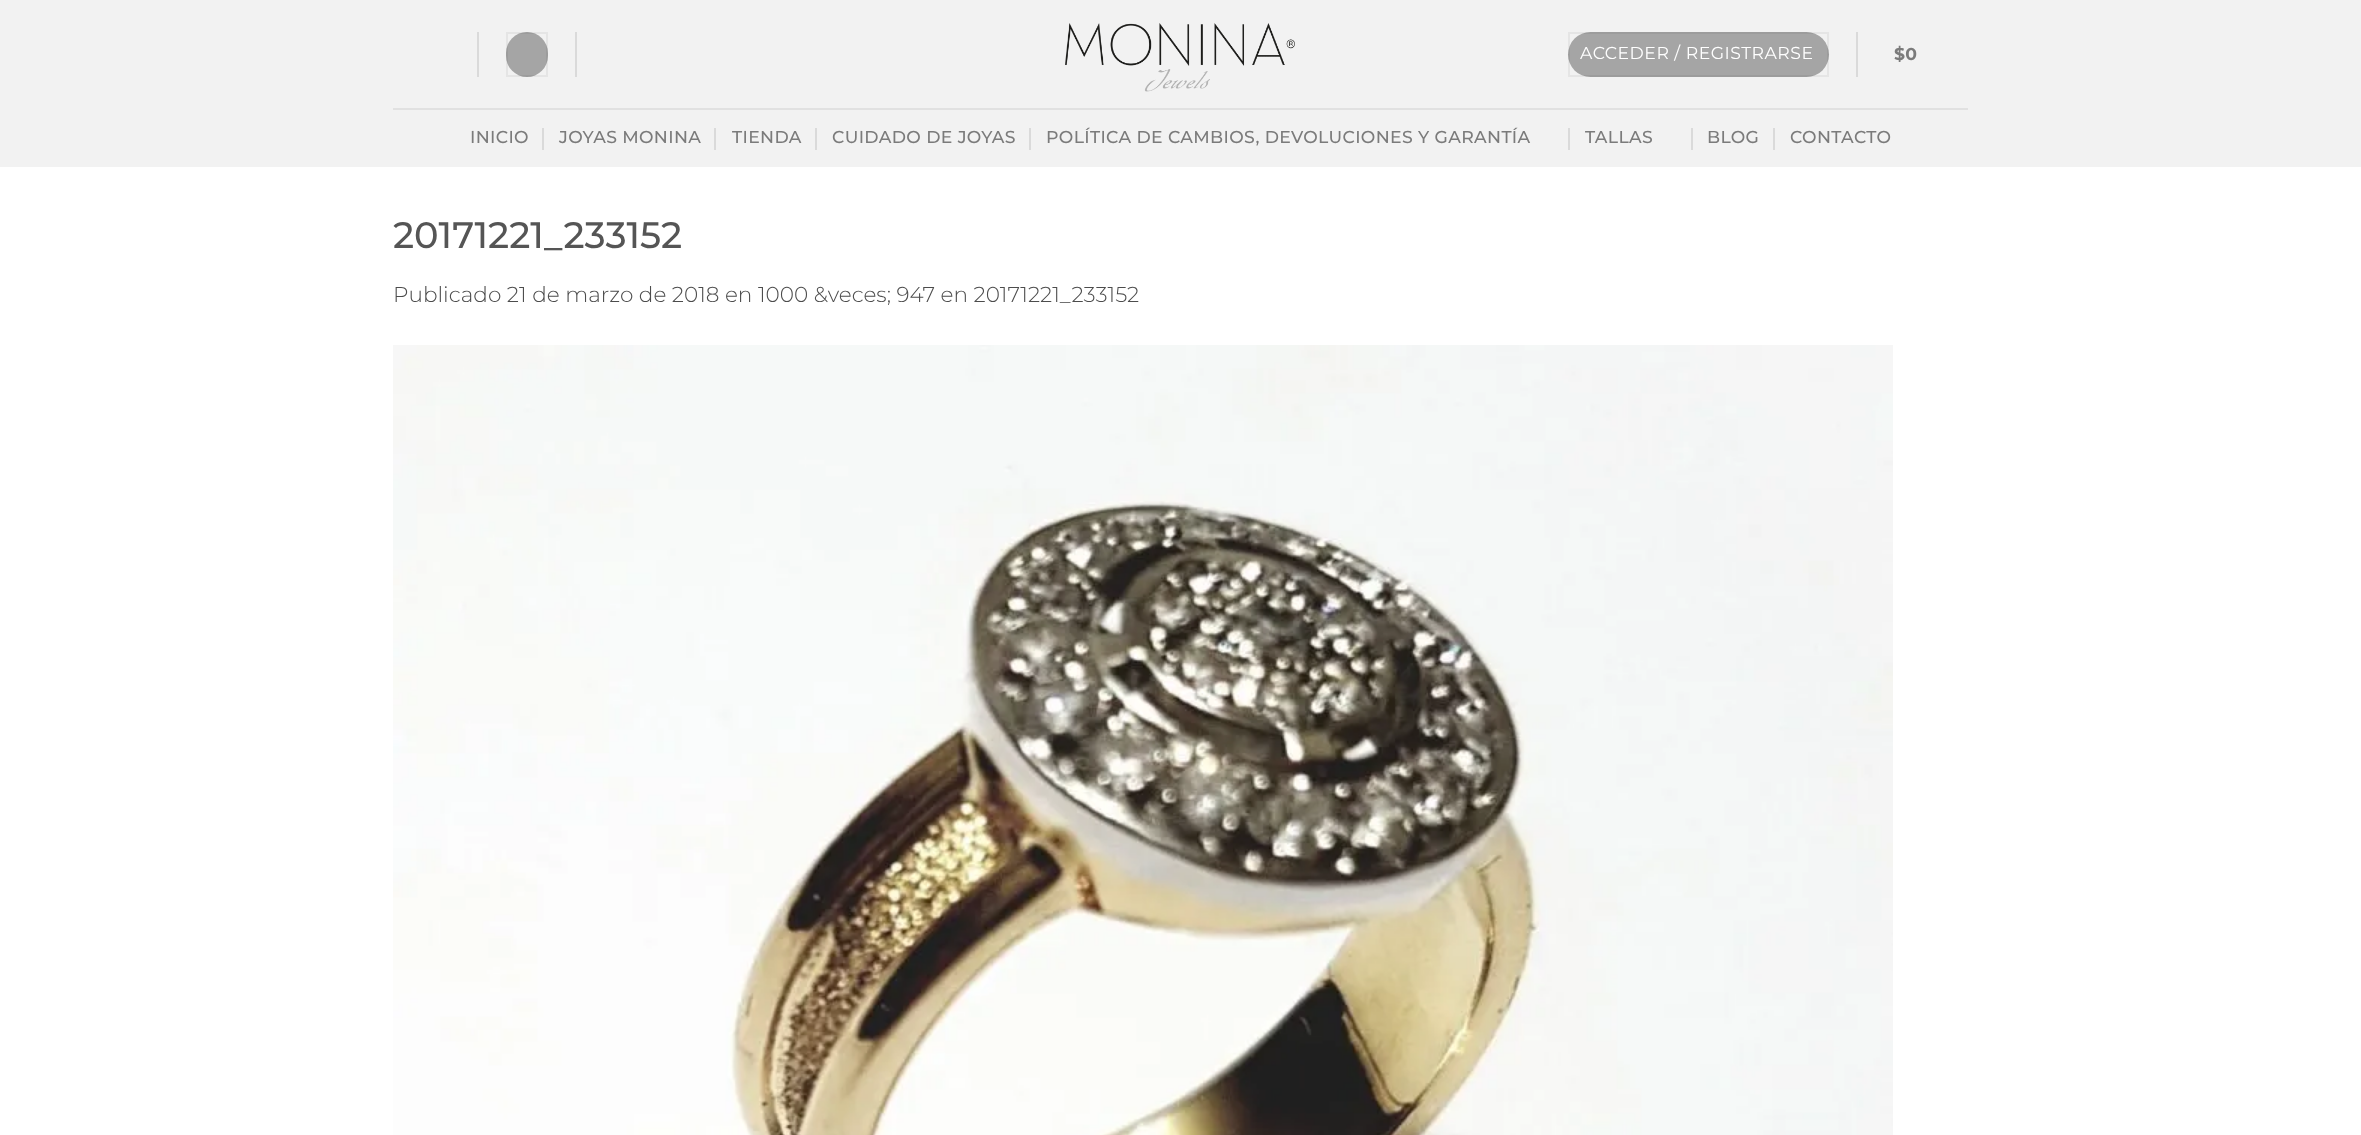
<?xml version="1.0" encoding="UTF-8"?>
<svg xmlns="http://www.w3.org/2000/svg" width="2361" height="1135">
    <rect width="100%" height="100%" fill="#FFFFFF"/>
    <rect x="0" y="0" width="2361" height="167" fill="#F2F2F2"/>
    <rect x="477" y="32" width="2" height="45" fill="#DADADA"/>
    <rect x="506" y="32" width="42" height="45" rx="21" fill="#A5A5A5"/>
    <rect x="507" y="33" width="40" height="43" fill="none" stroke="#000000" stroke-opacity="0.05" stroke-width="2"/>
    <rect x="575" y="32" width="2" height="45" fill="#DADADA"/>
    <image x="1065" y="23" width="230" height="69" href="img_01.png"/>
    <rect x="1568" y="32" width="261" height="45" rx="22.5" fill="#A5A5A5"/>
    <rect x="1569" y="33" width="259" height="43" fill="none" stroke="#000000" stroke-opacity="0.05" stroke-width="2"/>
    <text x="1580" y="59" font-family="Montserrat" font-size="17.25" letter-spacing="0.5" fill="#FFFFFF">ACCEDER / REGISTRARSE</text>
    <rect x="1856" y="32" width="2" height="45" fill="#DADADA"/>
    <text x="1894" y="60" font-family="Montserrat" font-size="17.25" font-weight="700" letter-spacing="0.35" fill="#7B7B7B">$0</text>
    <rect x="393" y="108" width="1575" height="2" fill="#E1E1E1"/>
    <text x="470" y="143" font-family="Montserrat" font-size="17.25" font-weight="500" letter-spacing="0.35" fill="#7B7B7B">INICIO</text>
    <rect x="542" y="128" width="2" height="22" fill="#DADADA"/>
    <text x="559" y="143" font-family="Montserrat" font-size="17.25" font-weight="500" letter-spacing="0.35" fill="#7B7B7B">JOYAS MONINA</text>
    <rect x="714" y="128" width="2" height="22" fill="#DADADA"/>
    <text x="732" y="143" font-family="Montserrat" font-size="17.25" font-weight="500" letter-spacing="0.35" fill="#7B7B7B">TIENDA</text>
    <rect x="815" y="128" width="2" height="22" fill="#DADADA"/>
    <text x="832" y="143" font-family="Montserrat" font-size="17.25" font-weight="500" letter-spacing="0.35" fill="#7B7B7B">CUIDADO DE JOYAS</text>
    <rect x="1029" y="128" width="2" height="22" fill="#DADADA"/>
    <text x="1046" y="143" font-family="Montserrat" font-size="17.25" font-weight="500" letter-spacing="0.35" fill="#7B7B7B">POLÍTICA DE CAMBIOS, DEVOLUCIONES Y GARANTÍA</text>
    <rect x="1568" y="128" width="2" height="22" fill="#DADADA"/>
    <text x="1585" y="143" font-family="Montserrat" font-size="17.25" font-weight="500" letter-spacing="0.35" fill="#7B7B7B">TALLAS</text>
    <rect x="1691" y="128" width="2" height="22" fill="#DADADA"/>
    <text x="1707" y="143" font-family="Montserrat" font-size="17.25" font-weight="500" letter-spacing="0.35" fill="#7B7B7B">BLOG</text>
    <rect x="1773" y="128" width="2" height="22" fill="#DADADA"/>
    <text x="1790" y="143" font-family="Montserrat" font-size="17.25" font-weight="500" letter-spacing="0.35" fill="#7B7B7B">CONTACTO</text>
    <text x="393" y="248" font-family="Montserrat" font-size="36.75" font-weight="500" fill="#555555">20171221_233152</text>
    <text x="393" y="302" font-family="Montserrat" font-size="21.6" font-weight="300" fill="#4C4C4C">Publicado 21 de marzo de 2018 en 1000 &amp;veces; 947 en 20171221_233152</text>
    <image x="393" y="345" width="1500" height="790" href="img_02.png"/>
</svg>
